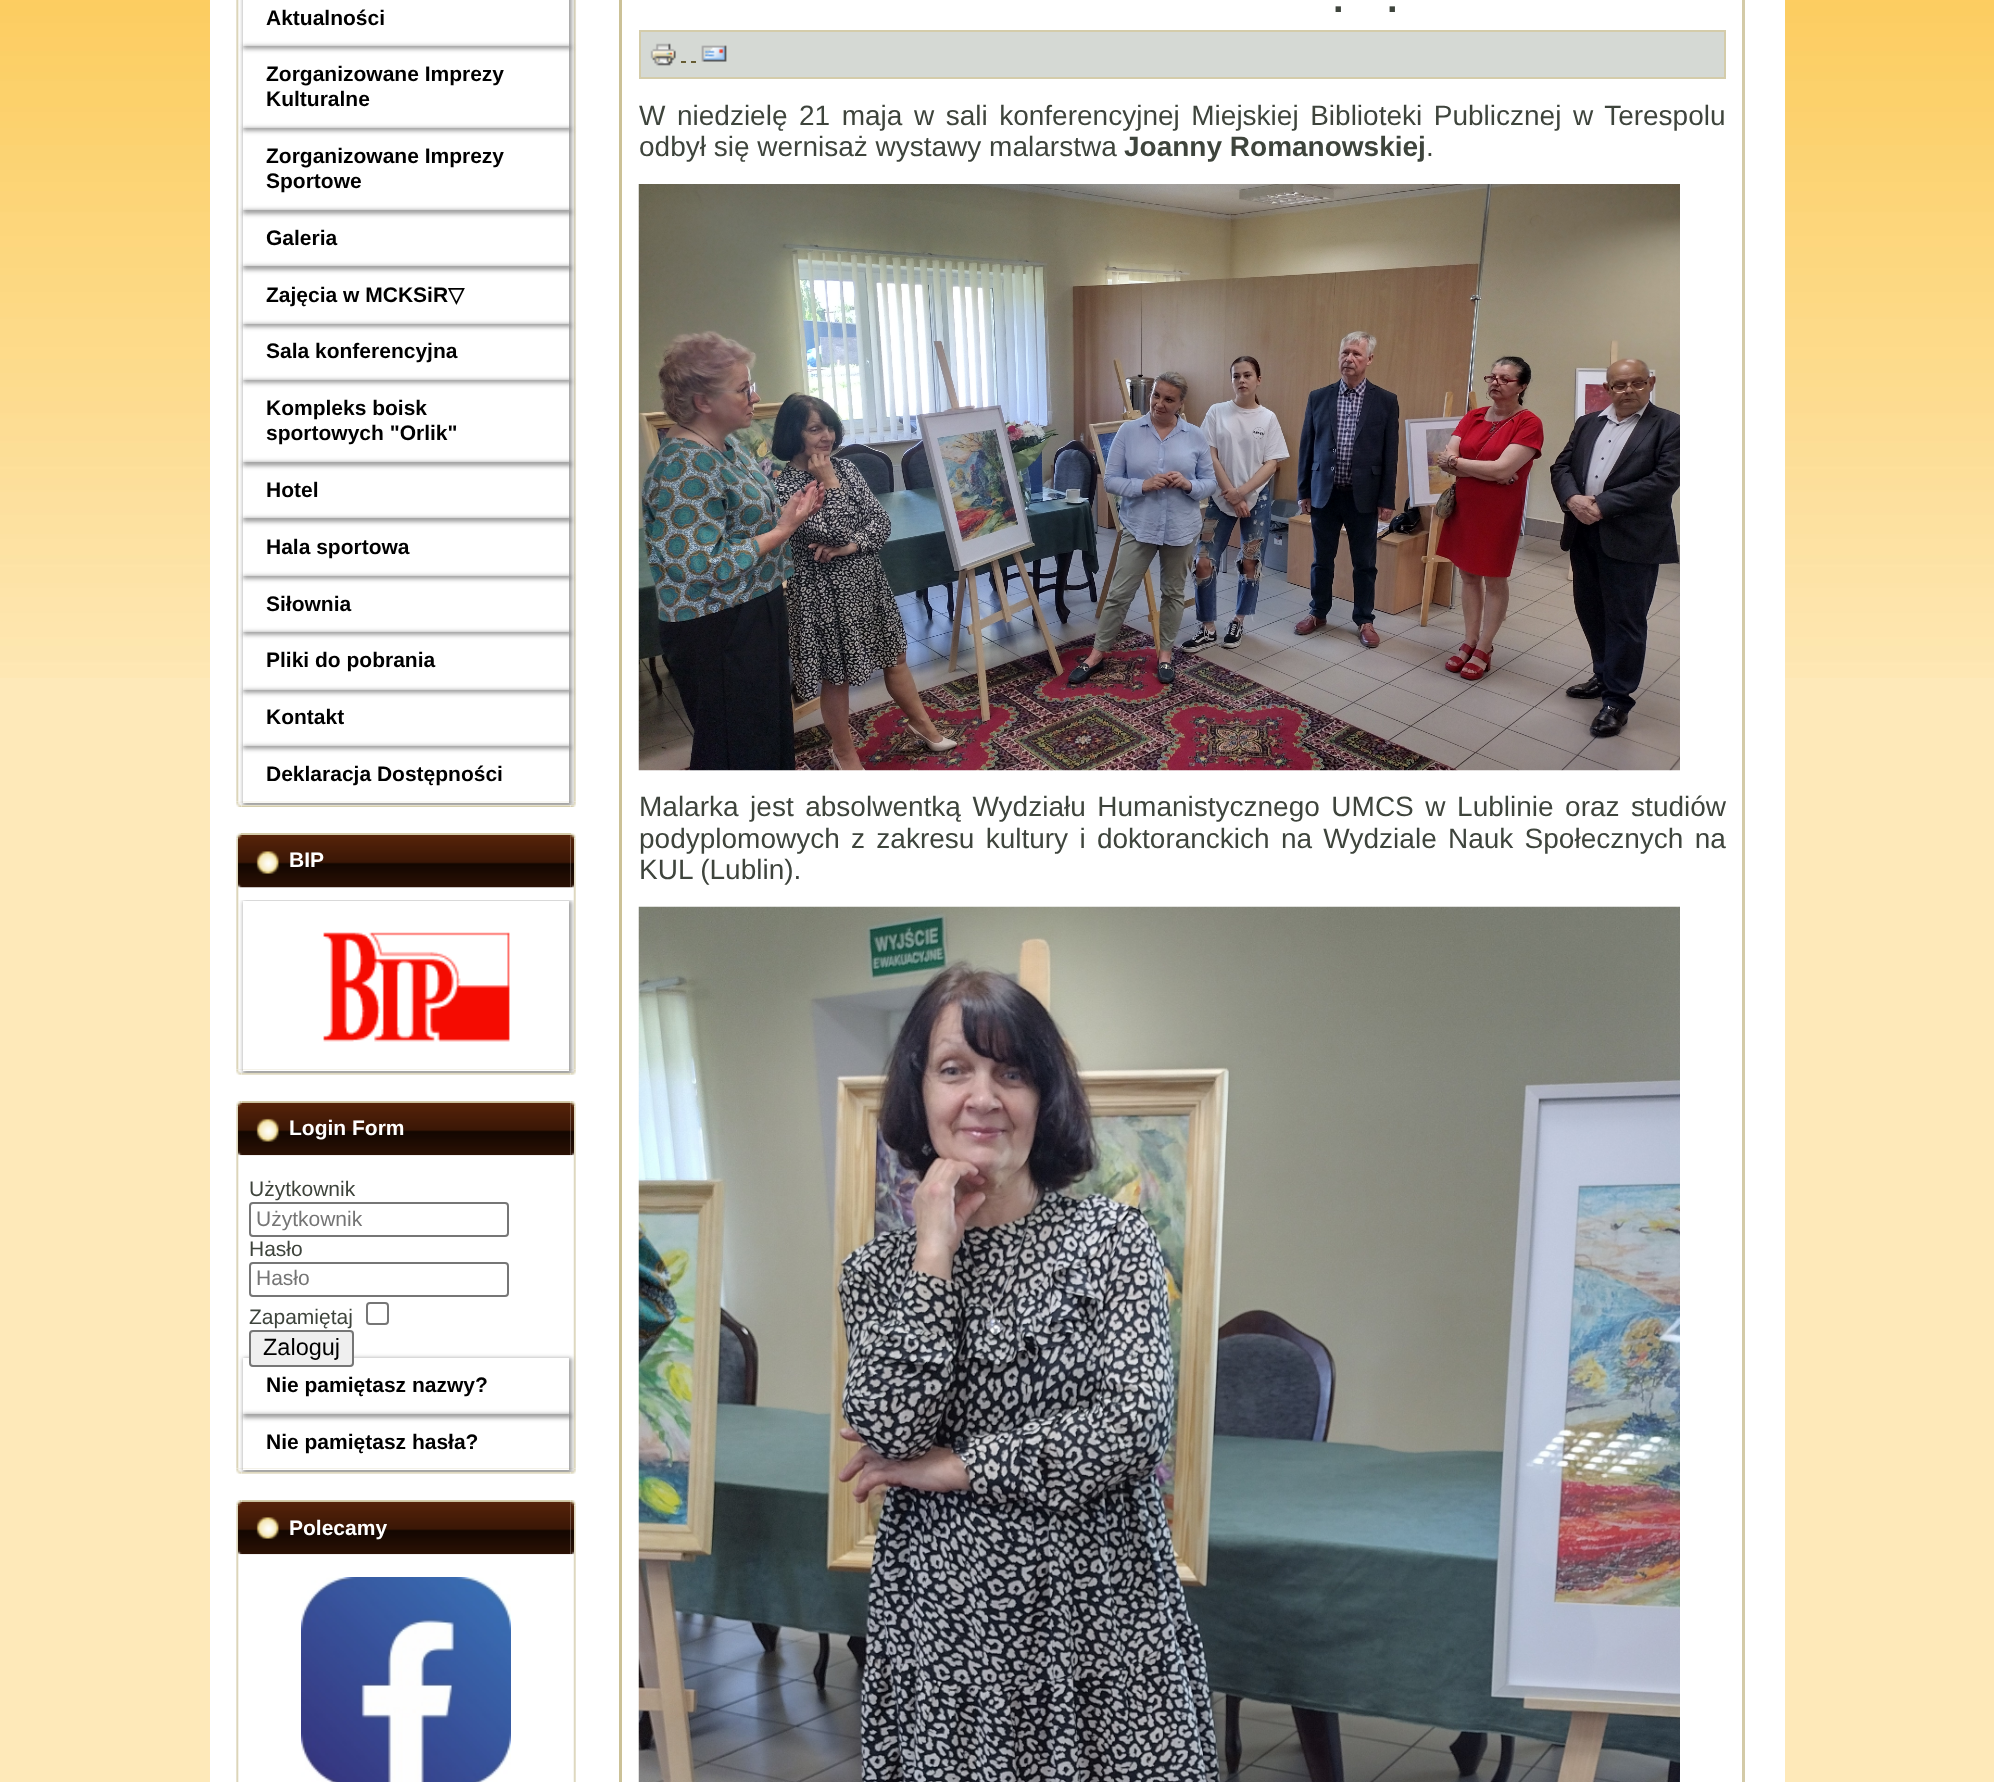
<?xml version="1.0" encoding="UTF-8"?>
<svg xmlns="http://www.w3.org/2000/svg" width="1994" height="1782">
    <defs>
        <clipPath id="clip1"><path d="M 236 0 H 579 V 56 H 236 Z M 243 -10 H 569 V 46 H 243 Z" clip-rule="evenodd"/></clipPath>
        <filter id="blur1" x="-50%" y="-200%" width="200%" height="500%"><feGaussianBlur stdDeviation="2"/></filter>
        <clipPath id="clip2"><path d="M 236 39 H 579 V 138 H 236 Z M 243 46 H 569 V 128 H 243 Z" clip-rule="evenodd"/></clipPath>
        <clipPath id="clip3"><path d="M 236 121 H 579 V 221 H 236 Z M 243 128 H 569 V 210 H 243 Z" clip-rule="evenodd"/></clipPath>
        <clipPath id="clip4"><path d="M 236 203 H 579 V 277 H 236 Z M 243 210 H 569 V 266 H 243 Z" clip-rule="evenodd"/></clipPath>
        <clipPath id="clip5"><path d="M 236 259 H 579 V 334 H 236 Z M 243 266 H 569 V 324 H 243 Z" clip-rule="evenodd"/></clipPath>
        <clipPath id="clip6"><path d="M 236 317 H 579 V 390 H 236 Z M 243 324 H 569 V 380 H 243 Z" clip-rule="evenodd"/></clipPath>
        <clipPath id="clip7"><path d="M 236 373 H 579 V 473 H 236 Z M 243 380 H 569 V 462 H 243 Z" clip-rule="evenodd"/></clipPath>
        <clipPath id="clip8"><path d="M 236 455 H 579 V 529 H 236 Z M 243 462 H 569 V 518 H 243 Z" clip-rule="evenodd"/></clipPath>
        <clipPath id="clip9"><path d="M 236 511 H 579 V 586 H 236 Z M 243 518 H 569 V 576 H 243 Z" clip-rule="evenodd"/></clipPath>
        <clipPath id="clip10"><path d="M 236 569 H 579 V 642 H 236 Z M 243 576 H 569 V 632 H 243 Z" clip-rule="evenodd"/></clipPath>
        <clipPath id="clip11"><path d="M 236 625 H 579 V 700 H 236 Z M 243 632 H 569 V 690 H 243 Z" clip-rule="evenodd"/></clipPath>
        <clipPath id="clip12"><path d="M 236 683 H 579 V 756 H 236 Z M 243 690 H 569 V 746 H 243 Z" clip-rule="evenodd"/></clipPath>
        <clipPath id="clip13"><rect x="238" y="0" width="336" height="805"/></clipPath>
        <clipPath id="clip14"><path d="M 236 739 H 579 V 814 H 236 Z M 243 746 H 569 V 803 H 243 Z" clip-rule="evenodd"/></clipPath>
        <clipPath id="clip15"><rect x="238" y="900" width="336" height="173"/></clipPath>
        <clipPath id="clip16"><path d="M 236 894 H 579 V 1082 H 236 Z M 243 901 H 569 V 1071 H 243 Z" clip-rule="evenodd"/></clipPath>
        <clipPath id="clip17"><path d="M 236 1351 H 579 V 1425 H 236 Z M 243 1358 H 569 V 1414 H 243 Z" clip-rule="evenodd"/></clipPath>
        <clipPath id="clip18"><rect x="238" y="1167" width="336" height="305"/></clipPath>
        <clipPath id="clip19"><path d="M 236 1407 H 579 V 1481 H 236 Z M 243 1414 H 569 V 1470 H 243 Z" clip-rule="evenodd"/></clipPath>
    </defs>
    <rect width="100%" height="100%" fill="#FEE9B9"/>
    <image x="0" y="0" width="1994" height="678" href="img_01.png"/>
    <rect x="210" y="0" width="1575" height="1782" fill="#FFFFFF"/>
    <image x="236" y="801" width="6" height="6" href="img_04.png"/>
    <image x="236" y="0" width="5" height="802" href="img_02.png"/>
    <image x="570" y="801" width="6" height="6" href="img_06.png"/>
    <image x="571" y="0" width="5" height="802" href="img_03.png"/>
    <g clip-path="url(#clip1)">
        <rect x="243" y="-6" width="329" height="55" fill="#646464" fill-opacity="0.6" filter="url(#blur1)"/>
    </g>
    <text x="266" y="25" font-family="Liberation Sans" font-size="21" font-weight="700" fill="#000000">Aktualności</text>
    <g clip-path="url(#clip2)">
        <rect x="243" y="46" width="329" height="85" fill="#646464" fill-opacity="0.6" filter="url(#blur1)"/>
    </g>
    <text font-family="Liberation Sans" font-size="21" font-weight="700" fill="#000000">
        <tspan x="266" y="81">Zorganizowane Imprezy</tspan>
        <tspan x="266" y="106">Kulturalne</tspan>
    </text>
    <g clip-path="url(#clip3)">
        <rect x="243" y="128" width="329" height="86" fill="#646464" fill-opacity="0.6" filter="url(#blur1)"/>
    </g>
    <text font-family="Liberation Sans" font-size="21" font-weight="700" fill="#000000">
        <tspan x="266" y="163">Zorganizowane Imprezy</tspan>
        <tspan x="266" y="188">Sportowe</tspan>
    </text>
    <g clip-path="url(#clip4)">
        <rect x="243" y="210" width="329" height="60" fill="#646464" fill-opacity="0.6" filter="url(#blur1)"/>
    </g>
    <text x="266" y="245" font-family="Liberation Sans" font-size="21" font-weight="700" fill="#000000">Galeria</text>
    <g clip-path="url(#clip5)">
        <rect x="243" y="266" width="329" height="61" fill="#646464" fill-opacity="0.6" filter="url(#blur1)"/>
    </g>
    <text x="266" y="302" font-family="Liberation Sans" font-size="21" font-weight="700" fill="#000000">Zajęcia w MCKSiR</text>
    <text x="448" y="302" font-family="DejaVu Sans" font-size="21" font-weight="700" fill="#000000">▽</text>
    <g clip-path="url(#clip6)">
        <rect x="243" y="324" width="329" height="59" fill="#646464" fill-opacity="0.6" filter="url(#blur1)"/>
    </g>
    <text x="266" y="358" font-family="Liberation Sans" font-size="21" font-weight="700" fill="#000000">Sala konferencyjna</text>
    <g clip-path="url(#clip7)">
        <rect x="243" y="380" width="329" height="86" fill="#646464" fill-opacity="0.6" filter="url(#blur1)"/>
    </g>
    <text font-family="Liberation Sans" font-size="21" font-weight="700" fill="#000000">
        <tspan x="266" y="415">Kompleks boisk</tspan>
        <tspan x="266" y="440">sportowych "Orlik"</tspan>
    </text>
    <g clip-path="url(#clip8)">
        <rect x="243" y="462" width="329" height="60" fill="#646464" fill-opacity="0.6" filter="url(#blur1)"/>
    </g>
    <text x="266" y="497" font-family="Liberation Sans" font-size="21" font-weight="700" fill="#000000">Hotel</text>
    <g clip-path="url(#clip9)">
        <rect x="243" y="518" width="329" height="61" fill="#646464" fill-opacity="0.6" filter="url(#blur1)"/>
    </g>
    <text x="266" y="554" font-family="Liberation Sans" font-size="21" font-weight="700" fill="#000000">Hala sportowa</text>
    <g clip-path="url(#clip10)">
        <rect x="243" y="576" width="329" height="59" fill="#646464" fill-opacity="0.6" filter="url(#blur1)"/>
    </g>
    <text x="266" y="611" font-family="Liberation Sans" font-size="21" font-weight="700" fill="#000000">Siłownia</text>
    <g clip-path="url(#clip11)">
        <rect x="243" y="632" width="329" height="61" fill="#646464" fill-opacity="0.6" filter="url(#blur1)"/>
    </g>
    <text x="266" y="667" font-family="Liberation Sans" font-size="21" font-weight="700" fill="#000000">Pliki do pobrania</text>
    <g clip-path="url(#clip12)">
        <rect x="243" y="690" width="329" height="59" fill="#646464" fill-opacity="0.6" filter="url(#blur1)"/>
    </g>
    <text x="266" y="724" font-family="Liberation Sans" font-size="21" font-weight="700" fill="#000000">Kontakt</text>
    <image x="241" y="801" width="330" height="6" href="img_05.png"/>
    <g clip-path="url(#clip13)">
        <g clip-path="url(#clip14)">
            <rect x="243" y="746" width="329" height="61" fill="#646464" fill-opacity="0.6" filter="url(#blur1)"/>
        </g>
    </g>
    <text x="266" y="781" font-family="Liberation Sans" font-size="21" font-weight="700" fill="#000000">Deklaracja Dostępności</text>
    <image x="236" y="833" width="5" height="6" href="img_07.png"/>
    <rect x="241" y="833" width="330" height="6" fill="#D4CCAA"/>
    <image x="571" y="833" width="5" height="6" href="img_08.png"/>
    <image x="236" y="1069" width="6" height="6" href="img_15.png"/>
    <image x="570" y="1069" width="6" height="6" href="img_17.png"/>
    <image x="241" y="1069" width="330" height="6" href="img_16.png"/>
    <image x="236" y="838" width="6" height="232" href="img_09.png"/>
    <image x="570" y="838" width="6" height="232" href="img_14.png"/>
    <image x="238" y="835" width="333" height="53" href="img_10.png"/>
    <image x="570" y="835" width="4" height="53" href="img_11.png"/>
    <image x="256" y="851" width="23" height="23" href="img_12.png"/>
    <text x="289" y="867" font-family="Liberation Sans" font-size="21" font-weight="700" fill="#FFFFFF">BIP</text>
    <g clip-path="url(#clip15)">
        <g clip-path="url(#clip16)">
            <rect x="243" y="901" width="329" height="174" fill="#646464" fill-opacity="0.6" filter="url(#blur1)"/>
        </g>
    </g>
    <image x="323" y="932" width="187" height="110" href="img_13.png"/>
    <image x="236" y="1101" width="6" height="6" href="img_18.png"/>
    <image x="570" y="1101" width="6" height="6" href="img_20.png"/>
    <image x="241" y="1101" width="330" height="6" href="img_19.png"/>
    <image x="236" y="1468" width="6" height="6" href="img_15.png"/>
    <image x="236" y="1106" width="5" height="363" href="img_21.png"/>
    <image x="238" y="1102" width="333" height="54" href="img_22.png"/>
    <image x="570" y="1468" width="6" height="6" href="img_17.png"/>
    <image x="571" y="1106" width="5" height="363" href="img_25.png"/>
    <image x="570" y="1102" width="4" height="54" href="img_23.png"/>
    <image x="256" y="1118" width="23" height="24" href="img_24.png"/>
    <text x="289" y="1135" font-family="Liberation Sans" font-size="21" font-weight="700" fill="#FFFFFF">Login Form</text>
    <text x="249" y="1196" font-family="Liberation Sans" font-size="21" fill="#3E443C">Użytkownik</text>
    <rect x="250" y="1203" width="258" height="33" rx="3" fill="none" stroke="#767676" stroke-width="2"/>
    <text x="256" y="1226" font-family="Liberation Sans" font-size="21" fill="#757575">Użytkownik</text>
    <text x="249" y="1256" font-family="Liberation Sans" font-size="21" fill="#3E443C">Hasło</text>
    <rect x="250" y="1263" width="258" height="33" rx="3" fill="none" stroke="#767676" stroke-width="2"/>
    <text x="256" y="1285" font-family="Liberation Sans" font-size="21" fill="#757575">Hasło</text>
    <text x="249" y="1324" font-family="Liberation Sans" font-size="21" fill="#3E443C">Zapamiętaj</text>
    <rect x="367" y="1303" width="21" height="21" rx="3" fill="none" stroke="#767676" stroke-width="2"/>
    <g clip-path="url(#clip17)">
        <rect x="243" y="1358" width="329" height="60" fill="#646464" fill-opacity="0.6" filter="url(#blur1)"/>
    </g>
    <rect x="250" y="1331" width="103" height="35" rx="3" fill="#EFEFEF" stroke="#767676" stroke-width="2"/>
    <text x="263" y="1355" font-family="Liberation Sans" font-size="23.5" fill="#000000">Zaloguj</text>
    <text x="266" y="1392" font-family="Liberation Sans" font-size="21" font-weight="700" fill="#000000">Nie pamiętasz nazwy?</text>
    <image x="241" y="1468" width="330" height="6" href="img_16.png"/>
    <g clip-path="url(#clip18)">
        <g clip-path="url(#clip19)">
            <rect x="243" y="1414" width="329" height="60" fill="#646464" fill-opacity="0.6" filter="url(#blur1)"/>
        </g>
    </g>
    <text x="266" y="1449" font-family="Liberation Sans" font-size="21" font-weight="700" fill="#000000">Nie pamiętasz hasła?</text>
    <image x="236" y="1500" width="6" height="6" href="img_18.png"/>
    <image x="570" y="1500" width="6" height="6" href="img_20.png"/>
    <image x="241" y="1500" width="330" height="6" href="img_19.png"/>
    <image x="236" y="1505" width="5" height="277" href="img_26.png"/>
    <image x="238" y="1501" width="333" height="54" href="img_27.png"/>
    <image x="571" y="1505" width="5" height="277" href="img_31.png"/>
    <image x="570" y="1501" width="4" height="54" href="img_28.png"/>
    <image x="256" y="1517" width="23" height="22" href="img_29.png"/>
    <text x="289" y="1535" font-family="Liberation Sans" font-size="21" font-weight="700" fill="#FFFFFF">Polecamy</text>
    <image x="301" y="1577" width="210" height="205" href="img_30.png"/>
    <rect x="619" y="0" width="3" height="1782" fill="#CBC197"/>
    <text x="1333" y="12" font-family="Liberation Sans" font-size="38" font-weight="700" fill="#3E443C">.</text>
    <text x="1387" y="12" font-family="Liberation Sans" font-size="38" font-weight="700" fill="#3E443C">.</text>
    <rect x="640" y="31" width="1085" height="47" fill="#D5D9D4" stroke="#D4CCAA" stroke-width="2"/>
    <image x="650" y="43" width="26" height="23" href="img_32.png"/>
    <rect x="681" y="61" width="5" height="2" fill="#665C33"/>
    <rect x="691" y="61" width="5" height="2" fill="#665C33"/>
    <image x="701" y="45" width="26" height="17" href="img_33.png"/>
    <text font-family="Liberation Sans" font-size="28" fill="#3E443C">
        <tspan x="639" y="125" word-spacing="3.75">W niedzielę 21 maja w sali konferencyjnej Miejskiej Biblioteki Publicznej w Terespolu</tspan>
        <tspan x="639" y="156">odbył się wernisaż wystawy malarstwa</tspan>
    </text>
    <text x="1124" y="156" font-family="Liberation Sans" font-size="28" font-weight="700" fill="#3E443C">Joanny Romanowskiej</text>
    <text x="1426" y="156" font-family="Liberation Sans" font-size="28" fill="#3E443C">.</text>
    <image x="638" y="184" width="1042" height="587" href="img_34.png"/>
    <text font-family="Liberation Sans" font-size="28" fill="#3E443C">
        <tspan x="639" y="816" word-spacing="3.75">Malarka jest absolwentką Wydziału Humanistycznego UMCS w Lublinie oraz studiów</tspan>
        <tspan x="639" y="848" word-spacing="3.5">podyplomowych z zakresu kultury i doktoranckich na Wydziale Nauk Społecznych na</tspan>
        <tspan x="639" y="879">KUL (Lublin).</tspan>
    </text>
    <image x="638" y="906" width="1042" height="876" href="img_35.png"/>
    <rect x="1742" y="0" width="3" height="1782" fill="#D3CAA7"/>
</svg>
